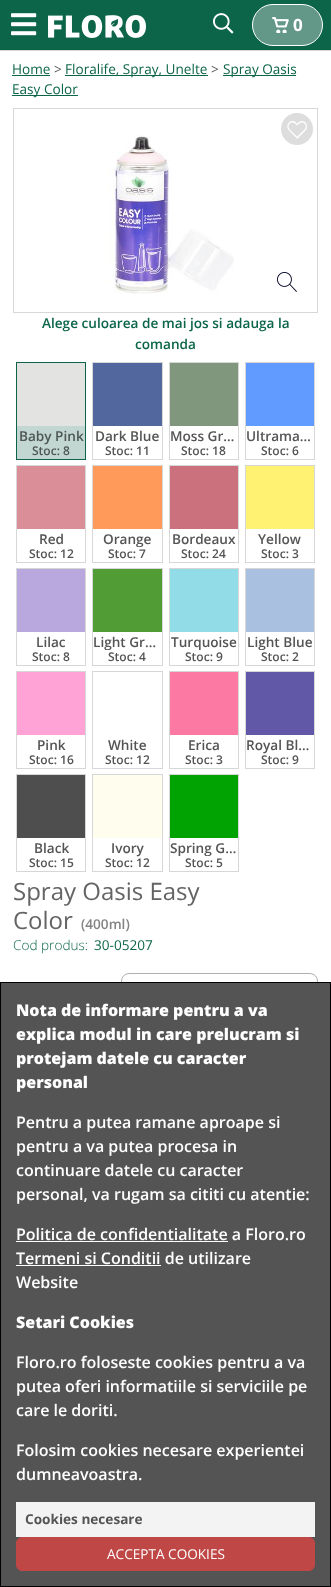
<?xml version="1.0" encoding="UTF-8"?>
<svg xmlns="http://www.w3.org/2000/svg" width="331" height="1587">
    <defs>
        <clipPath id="clip1"><rect x="93" y="531" width="69" height="16"/></clipPath>
        <clipPath id="clip2"><rect x="93" y="634" width="69" height="16"/></clipPath>
        <clipPath id="clip3"><rect x="170" y="634" width="68" height="16"/></clipPath>
        <clipPath id="clip4"><rect x="246" y="634" width="68" height="16"/></clipPath>
        <clipPath id="clip5"><rect x="170" y="840" width="68" height="16"/></clipPath>
    </defs>
    <rect width="100%" height="100%" fill="#0C6549"/>
    <image x="11" y="13" width="26" height="23" href="img_01.png"/>
    <image x="48" y="15" width="98" height="23" href="img_02.png"/>
    <image x="213" y="13" width="21" height="21" href="img_03.png"/>
    <rect x="252.5" y="4.5" width="70" height="41" rx="20.5" fill="#639787" stroke="#FFFFFF"/>
    <image x="272" y="17" width="17" height="16" href="img_04.png"/>
    <text x="293" y="31" font-family="Open Sans" font-size="17" font-weight="700" fill="#FFFFFF">0</text>
    <rect x="0" y="50" width="331" height="1" fill="#D7D7D7"/>
    <rect x="0" y="51" width="331" height="931" fill="#FFFFFF"/>
    <text x="12" y="74" font-family="Open Sans" font-size="13.6" fill="#0C6549">Home</text>
    <rect x="12" y="75" width="38" height="1" fill="#0C6549"/>
    <text x="54" y="74" font-family="Open Sans" font-size="13.6" fill="#545454">&gt;</text>
    <rect x="65" y="75" width="143" height="1" fill="#0C6549"/>
    <text x="65" y="74" font-family="Open Sans" font-size="13.6" fill="#0C6549">Floralife, Spray, Unelte</text>
    <text x="211" y="74" font-family="Open Sans" font-size="13.6" fill="#545454">&gt;</text>
    <rect x="223" y="75" width="73" height="1" fill="#0C6549"/>
    <text x="223" y="74" font-family="Open Sans" font-size="13.6" fill="#0C6549">Spray Oasis</text>
    <rect x="12" y="95" width="66" height="1" fill="#0C6549"/>
    <text x="12" y="94" font-family="Open Sans" font-size="13.6" fill="#0C6549">Easy Color</text>
    <rect x="13.5" y="108.5" width="304" height="204" fill="none" stroke="#D7D7D7"/>
    <image x="108" y="135" width="126" height="159" href="img_05.png"/>
    <image x="277" y="272" width="20" height="20" href="img_06.png"/>
    <image x="281" y="113" width="32" height="32" href="img_07.png"/>
    <text x="42" y="328" font-family="Open Sans" font-size="13.6" font-weight="600" fill="#0C6549">Alege culoarea de mai jos si adauga la</text>
    <text x="135" y="349" font-family="Open Sans" font-size="13.6" font-weight="600" fill="#0C6549">comanda</text>
    <rect x="17" y="426" width="68" height="33" fill="#C3D7D2"/>
    <rect x="16.5" y="362.5" width="69" height="97" fill="none" stroke="#0C6549"/>
    <rect x="17" y="363" width="68" height="63" fill="#E3E4E1"/>
    <text x="19" y="441" font-family="Open Sans" font-size="13.6" font-weight="600" fill="#4D5653">Baby Pink</text>
    <text x="32" y="455" font-family="Open Sans" font-size="12" font-weight="600" fill="#4D5653">Stoc: 8</text>
    <rect x="92.5" y="362.5" width="70" height="97" fill="none" stroke="#D7D7D7"/>
    <rect x="93" y="363" width="69" height="63" fill="#52679D"/>
    <text x="95" y="441" font-family="Open Sans" font-size="13.6" font-weight="600" fill="#545454">Dark Blue</text>
    <text x="105" y="455" font-family="Open Sans" font-size="12" font-weight="600" fill="#545454">Stoc: 11</text>
    <rect x="169.5" y="362.5" width="69" height="97" fill="none" stroke="#D7D7D7"/>
    <rect x="170" y="363" width="68" height="63" fill="#80977D"/>
    <text x="170" y="441" font-family="Open Sans" font-size="13.6" font-weight="600" fill="#545454">Moss Gr…</text>
    <text x="181" y="455" font-family="Open Sans" font-size="12" font-weight="600" fill="#545454">Stoc: 18</text>
    <rect x="245.5" y="362.5" width="69" height="97" fill="none" stroke="#D7D7D7"/>
    <rect x="246" y="363" width="68" height="63" fill="#619BFF"/>
    <text x="246" y="441" font-family="Open Sans" font-size="13.6" font-weight="600" fill="#545454">Ultrama…</text>
    <text x="261" y="455" font-family="Open Sans" font-size="12" font-weight="600" fill="#545454">Stoc: 6</text>
    <rect x="16.5" y="465.5" width="69" height="97" fill="none" stroke="#D7D7D7"/>
    <rect x="17" y="466" width="68" height="63" fill="#DA8E98"/>
    <text x="39" y="544" font-family="Open Sans" font-size="13.6" font-weight="600" fill="#545454">Red</text>
    <text x="29" y="558" font-family="Open Sans" font-size="12" font-weight="600" fill="#545454">Stoc: 12</text>
    <rect x="92.5" y="465.5" width="70" height="97" fill="none" stroke="#D7D7D7"/>
    <rect x="93" y="466" width="69" height="63" fill="#FF9A5A"/>
    <g clip-path="url(#clip1)">
        <text x="103" y="544" font-family="Open Sans" font-size="13.6" font-weight="600" fill="#545454">Orange</text>
    </g>
    <text x="108" y="558" font-family="Open Sans" font-size="12" font-weight="600" fill="#545454">Stoc: 7</text>
    <rect x="169.5" y="465.5" width="69" height="97" fill="none" stroke="#D7D7D7"/>
    <rect x="170" y="466" width="68" height="63" fill="#CB707D"/>
    <text x="172" y="544" font-family="Open Sans" font-size="13.6" font-weight="600" fill="#545454">Bordeaux</text>
    <text x="181" y="558" font-family="Open Sans" font-size="12" font-weight="600" fill="#545454">Stoc: 24</text>
    <rect x="245.5" y="465.5" width="69" height="97" fill="none" stroke="#D7D7D7"/>
    <rect x="246" y="466" width="68" height="63" fill="#FFF172"/>
    <text x="258" y="544" font-family="Open Sans" font-size="13.6" font-weight="600" fill="#545454">Yellow</text>
    <text x="261" y="558" font-family="Open Sans" font-size="12" font-weight="600" fill="#545454">Stoc: 3</text>
    <rect x="16.5" y="568.5" width="69" height="97" fill="none" stroke="#D7D7D7"/>
    <rect x="17" y="569" width="68" height="63" fill="#B9A8DE"/>
    <text x="36" y="647" font-family="Open Sans" font-size="13.6" font-weight="600" fill="#545454">Lilac</text>
    <text x="32" y="661" font-family="Open Sans" font-size="12" font-weight="600" fill="#545454">Stoc: 8</text>
    <rect x="92.5" y="568.5" width="70" height="97" fill="none" stroke="#D7D7D7"/>
    <rect x="93" y="569" width="69" height="63" fill="#519C35"/>
    <g clip-path="url(#clip2)">
        <text x="93" y="647" font-family="Open Sans" font-size="13.6" font-weight="600" fill="#545454">Light Gr…</text>
    </g>
    <text x="108" y="661" font-family="Open Sans" font-size="12" font-weight="600" fill="#545454">Stoc: 4</text>
    <rect x="169.5" y="568.5" width="69" height="97" fill="none" stroke="#D7D7D7"/>
    <rect x="170" y="569" width="68" height="63" fill="#92DCE7"/>
    <g clip-path="url(#clip3)">
        <text x="171" y="647" font-family="Open Sans" font-size="13.6" font-weight="600" fill="#545454">Turquoise</text>
    </g>
    <text x="185" y="661" font-family="Open Sans" font-size="12" font-weight="600" fill="#545454">Stoc: 9</text>
    <rect x="245.5" y="568.5" width="69" height="97" fill="none" stroke="#D7D7D7"/>
    <rect x="246" y="569" width="68" height="63" fill="#A9C0E0"/>
    <g clip-path="url(#clip4)">
        <text x="247" y="647" font-family="Open Sans" font-size="13.6" font-weight="600" fill="#545454">Light Blue</text>
    </g>
    <text x="261" y="661" font-family="Open Sans" font-size="12" font-weight="600" fill="#545454">Stoc: 2</text>
    <rect x="16.5" y="671.5" width="69" height="97" fill="none" stroke="#D7D7D7"/>
    <rect x="17" y="672" width="68" height="63" fill="#FFA2D6"/>
    <text x="37" y="750" font-family="Open Sans" font-size="13.6" font-weight="600" fill="#545454">Pink</text>
    <text x="29" y="764" font-family="Open Sans" font-size="12" font-weight="600" fill="#545454">Stoc: 16</text>
    <rect x="92.5" y="671.5" width="70" height="97" fill="none" stroke="#D7D7D7"/>
    <text x="108" y="750" font-family="Open Sans" font-size="13.6" font-weight="600" fill="#545454">White</text>
    <text x="105" y="764" font-family="Open Sans" font-size="12" font-weight="600" fill="#545454">Stoc: 12</text>
    <rect x="169.5" y="671.5" width="69" height="97" fill="none" stroke="#D7D7D7"/>
    <rect x="170" y="672" width="68" height="63" fill="#FB79A3"/>
    <text x="188" y="750" font-family="Open Sans" font-size="13.6" font-weight="600" fill="#545454">Erica</text>
    <text x="185" y="764" font-family="Open Sans" font-size="12" font-weight="600" fill="#545454">Stoc: 3</text>
    <rect x="245.5" y="671.5" width="69" height="97" fill="none" stroke="#D7D7D7"/>
    <rect x="246" y="672" width="68" height="63" fill="#6158A8"/>
    <text x="246" y="750" font-family="Open Sans" font-size="13.6" font-weight="600" fill="#545454">Royal Bl…</text>
    <text x="261" y="764" font-family="Open Sans" font-size="12" font-weight="600" fill="#545454">Stoc: 9</text>
    <rect x="16.5" y="774.5" width="69" height="97" fill="none" stroke="#D7D7D7"/>
    <rect x="17" y="775" width="68" height="63" fill="#4F4E4F"/>
    <text x="34" y="853" font-family="Open Sans" font-size="13.6" font-weight="600" fill="#545454">Black</text>
    <text x="29" y="867" font-family="Open Sans" font-size="12" font-weight="600" fill="#545454">Stoc: 15</text>
    <rect x="92.5" y="774.5" width="70" height="97" fill="none" stroke="#D7D7D7"/>
    <rect x="93" y="775" width="69" height="63" fill="#FFFDED"/>
    <text x="111" y="853" font-family="Open Sans" font-size="13.6" font-weight="600" fill="#545454">Ivory</text>
    <text x="105" y="867" font-family="Open Sans" font-size="12" font-weight="600" fill="#545454">Stoc: 12</text>
    <rect x="169.5" y="774.5" width="69" height="97" fill="none" stroke="#D7D7D7"/>
    <rect x="170" y="775" width="68" height="63" fill="#00A301"/>
    <g clip-path="url(#clip5)">
        <text x="170" y="853" font-family="Open Sans" font-size="13.6" font-weight="600" fill="#545454">Spring G…</text>
    </g>
    <text x="185" y="867" font-family="Open Sans" font-size="12" font-weight="600" fill="#545454">Stoc: 5</text>
    <text font-family="Open Sans" font-size="24" fill="#646464">
        <tspan x="13" y="900">Spray Oasis Easy</tspan>
        <tspan x="13" y="929">Color</tspan>
    </text>
    <text x="81" y="929" font-family="Open Sans" font-size="13.6" font-weight="600" fill="#838383">(400ml)</text>
    <text x="13" y="950" font-family="Open Sans" font-size="13.6" font-weight="300" fill="#0C6549">Cod produs:</text>
    <text x="94" y="950" font-family="Open Sans" font-size="13.6" fill="#0C6549">30-05207</text>
    <rect x="121.5" y="973.5" width="196" height="69" rx="7.5" fill="none" stroke="#AFAFAF"/>
    <rect x="0.5" y="982.5" width="330" height="604" fill="#545454" stroke="#000000"/>
    <text font-family="Open Sans" font-size="16" font-weight="800" fill="#FFFFFF">
        <tspan x="16" y="1016">Nota de informare pentru a va</tspan>
        <tspan x="16" y="1040">explica modul in care prelucram si</tspan>
        <tspan x="16" y="1064">protejam datele cu caracter</tspan>
        <tspan x="16" y="1088">personal</tspan>
    </text>
    <text font-family="Open Sans" font-size="16" font-weight="600" fill="#FFFFFF">
        <tspan x="16" y="1128">Pentru a putea ramane aproape si</tspan>
        <tspan x="16" y="1152">pentru a va putea procesa in</tspan>
        <tspan x="16" y="1176">continuare datele cu caracter</tspan>
        <tspan x="16" y="1200">personal, va rugam sa cititi cu atentie:</tspan>
    </text>
    <text x="16" y="1240" font-family="Open Sans" font-size="16" font-weight="600" fill="#FFFFFF">Politica de confidentialitate a Floro.ro</text>
    <rect x="16" y="1241" width="212" height="1" fill="#FFFFFF"/>
    <text x="16" y="1264" font-family="Open Sans" font-size="16" font-weight="600" fill="#FFFFFF">Termeni si Conditii de utilizare</text>
    <rect x="16" y="1265" width="145" height="1" fill="#FFFFFF"/>
    <text x="16" y="1288" font-family="Open Sans" font-size="16" font-weight="600" fill="#FFFFFF">Website</text>
    <text x="16" y="1328" font-family="Open Sans" font-size="16" font-weight="800" fill="#FFFFFF">Setari Cookies</text>
    <text font-family="Open Sans" font-size="16" font-weight="600" fill="#FFFFFF">
        <tspan x="16" y="1368">Floro.ro foloseste cookies pentru a va</tspan>
        <tspan x="16" y="1392">putea oferi informatiile si serviciile pe</tspan>
        <tspan x="16" y="1416">care le doriti.</tspan>
    </text>
    <text font-family="Open Sans" font-size="16" font-weight="600" fill="#FFFFFF">
        <tspan x="16" y="1456">Folosim cookies necesare experientei</tspan>
        <tspan x="16" y="1480">dumneavoastra.</tspan>
    </text>
    <rect x="16" y="1502" width="299" height="35" fill="#F3F3F3"/>
    <text x="25" y="1524" font-family="Open Sans" font-size="13.6" font-weight="700" fill="#545454">Cookies necesare</text>
    <rect x="16.5" y="1537.5" width="298" height="33" rx="5.5" fill="#BF4746" stroke="#BF4746"/>
    <text x="107" y="1559" font-family="Open Sans" font-size="13.6" fill="#FFFFFF">ACCEPTA COOKIES</text>
</svg>
